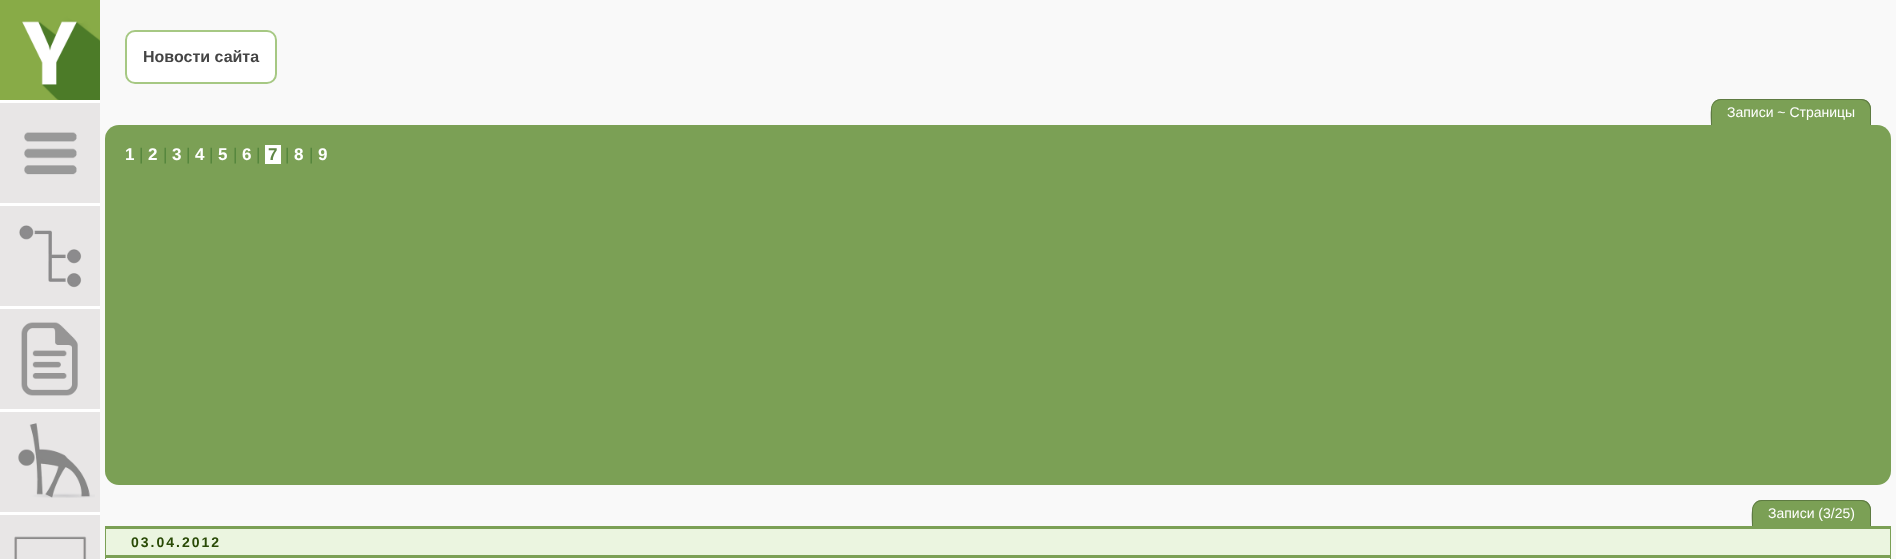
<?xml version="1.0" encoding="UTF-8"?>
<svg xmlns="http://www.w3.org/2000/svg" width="1896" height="559">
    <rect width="100%" height="100%" fill="#F9F9F9"/>
    <rect x="0" y="103" width="100" height="456" fill="#E8E6E6"/>
    <image x="0" y="0" width="100" height="100" href="img_01.png"/>
    <rect x="0" y="100" width="100" height="3" fill="#FFFFFF"/>
    <image x="24" y="132" width="53" height="43" href="img_02.png"/>
    <rect x="0" y="203" width="100" height="3" fill="#FFFFFF"/>
    <image x="19" y="225" width="63" height="63" href="img_03.png"/>
    <rect x="0" y="306" width="100" height="3" fill="#FFFFFF"/>
    <image x="21" y="322" width="57" height="74" href="img_04.png"/>
    <rect x="0" y="409" width="100" height="3" fill="#FFFFFF"/>
    <image x="18" y="423" width="77" height="75" href="img_05.png"/>
    <rect x="0" y="512" width="100" height="3" fill="#FFFFFF"/>
    <image x="14" y="536" width="73" height="23" href="img_06.png"/>
    <rect x="126" y="31" width="150" height="52" rx="9" fill="#FFFFFF" stroke="#A6C883" stroke-width="2"/>
    <text x="143" y="62" font-family="Liberation Sans" font-size="16" font-weight="700" fill="#444444">Новости сайта</text>
    <path d="M 1721 99 H 1861 C 1866.5 99 1871 103.5 1871 109 V 125 H 1711 V 109 C 1711 103.5 1715.5 99 1721 99 Z" fill="#7BA055"/>
    <path d="M 1721 99 H 1861 C 1867 99 1871 103 1871 109 V 125 H 1711 C 1711 117 1708 99 1721 99 Z M 1721 100 H 1861 C 1866 100 1870 104 1870 109 V 125 H 1712 V 109 C 1712 104 1716 100 1721 100 Z" fill="#5E7B42" fill-rule="evenodd"/>
    <text x="1727" y="117" font-family="Liberation Sans" font-size="14" fill="#FFFFFF">Записи ~ Страницы</text>
    <rect x="105" y="125" width="1786" height="360" rx="14" fill="#7BA055"/>
    <text x="125" y="160" font-family="Liberation Sans" font-size="17" font-weight="700" fill="#FFFFFF">1</text>
    <text x="139" y="160" font-family="Liberation Sans" font-size="17" fill="#53853C">|</text>
    <text x="148" y="160" font-family="Liberation Sans" font-size="17" font-weight="700" fill="#FFFFFF">2</text>
    <text x="163" y="160" font-family="Liberation Sans" font-size="17" fill="#53853C">|</text>
    <text x="172" y="160" font-family="Liberation Sans" font-size="17" font-weight="700" fill="#FFFFFF">3</text>
    <text x="186" y="160" font-family="Liberation Sans" font-size="17" fill="#53853C">|</text>
    <text x="195" y="160" font-family="Liberation Sans" font-size="17" font-weight="700" fill="#FFFFFF">4</text>
    <text x="209" y="160" font-family="Liberation Sans" font-size="17" fill="#53853C">|</text>
    <text x="218" y="160" font-family="Liberation Sans" font-size="17" font-weight="700" fill="#FFFFFF">5</text>
    <text x="233" y="160" font-family="Liberation Sans" font-size="17" fill="#53853C">|</text>
    <text x="242" y="160" font-family="Liberation Sans" font-size="17" font-weight="700" fill="#FFFFFF">6</text>
    <text x="256" y="160" font-family="Liberation Sans" font-size="17" fill="#53853C">|</text>
    <rect x="265" y="145" width="16" height="19" fill="#FFFFFF"/>
    <text x="268" y="160" font-family="Liberation Sans" font-size="17" font-weight="700" fill="#608545">7</text>
    <text x="285" y="160" font-family="Liberation Sans" font-size="17" fill="#53853C">|</text>
    <text x="294" y="160" font-family="Liberation Sans" font-size="17" font-weight="700" fill="#FFFFFF">8</text>
    <text x="309" y="160" font-family="Liberation Sans" font-size="17" fill="#53853C">|</text>
    <text x="318" y="160" font-family="Liberation Sans" font-size="17" font-weight="700" fill="#FFFFFF">9</text>
    <path d="M 1762 500 H 1861 C 1866.5 500 1871 504.5 1871 510 V 526 H 1752 V 510 C 1752 504.5 1756.5 500 1762 500 Z" fill="#7BA055"/>
    <path d="M 1762 500 H 1861 C 1867 500 1871 504 1871 510 V 526 H 1752 C 1752 518 1749 500 1762 500 Z M 1762 501 H 1861 C 1866 501 1870 505 1870 510 V 526 H 1753 V 510 C 1753 505 1757 501 1762 501 Z" fill="#5E7B42" fill-rule="evenodd"/>
    <text x="1768" y="518" font-family="Liberation Sans" font-size="14" fill="#FFFFFF">Записи (3/25)</text>
    <rect x="106" y="558" width="1784" height="1" fill="#FFFFFF"/>
    <rect x="105.5" y="526.5" width="1785" height="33" fill="none" stroke="#7BA055"/>
    <rect x="106" y="529" width="1784" height="26" fill="#EBF5E0"/>
    <rect x="106" y="527" width="1784" height="2" fill="#7BA055"/>
    <rect x="106" y="555" width="1784" height="3" fill="#7BA055"/>
    <text x="131" y="547" font-family="Liberation Sans" font-size="14" font-weight="700" letter-spacing="2" fill="#294A06">03.04.2012</text>
</svg>
